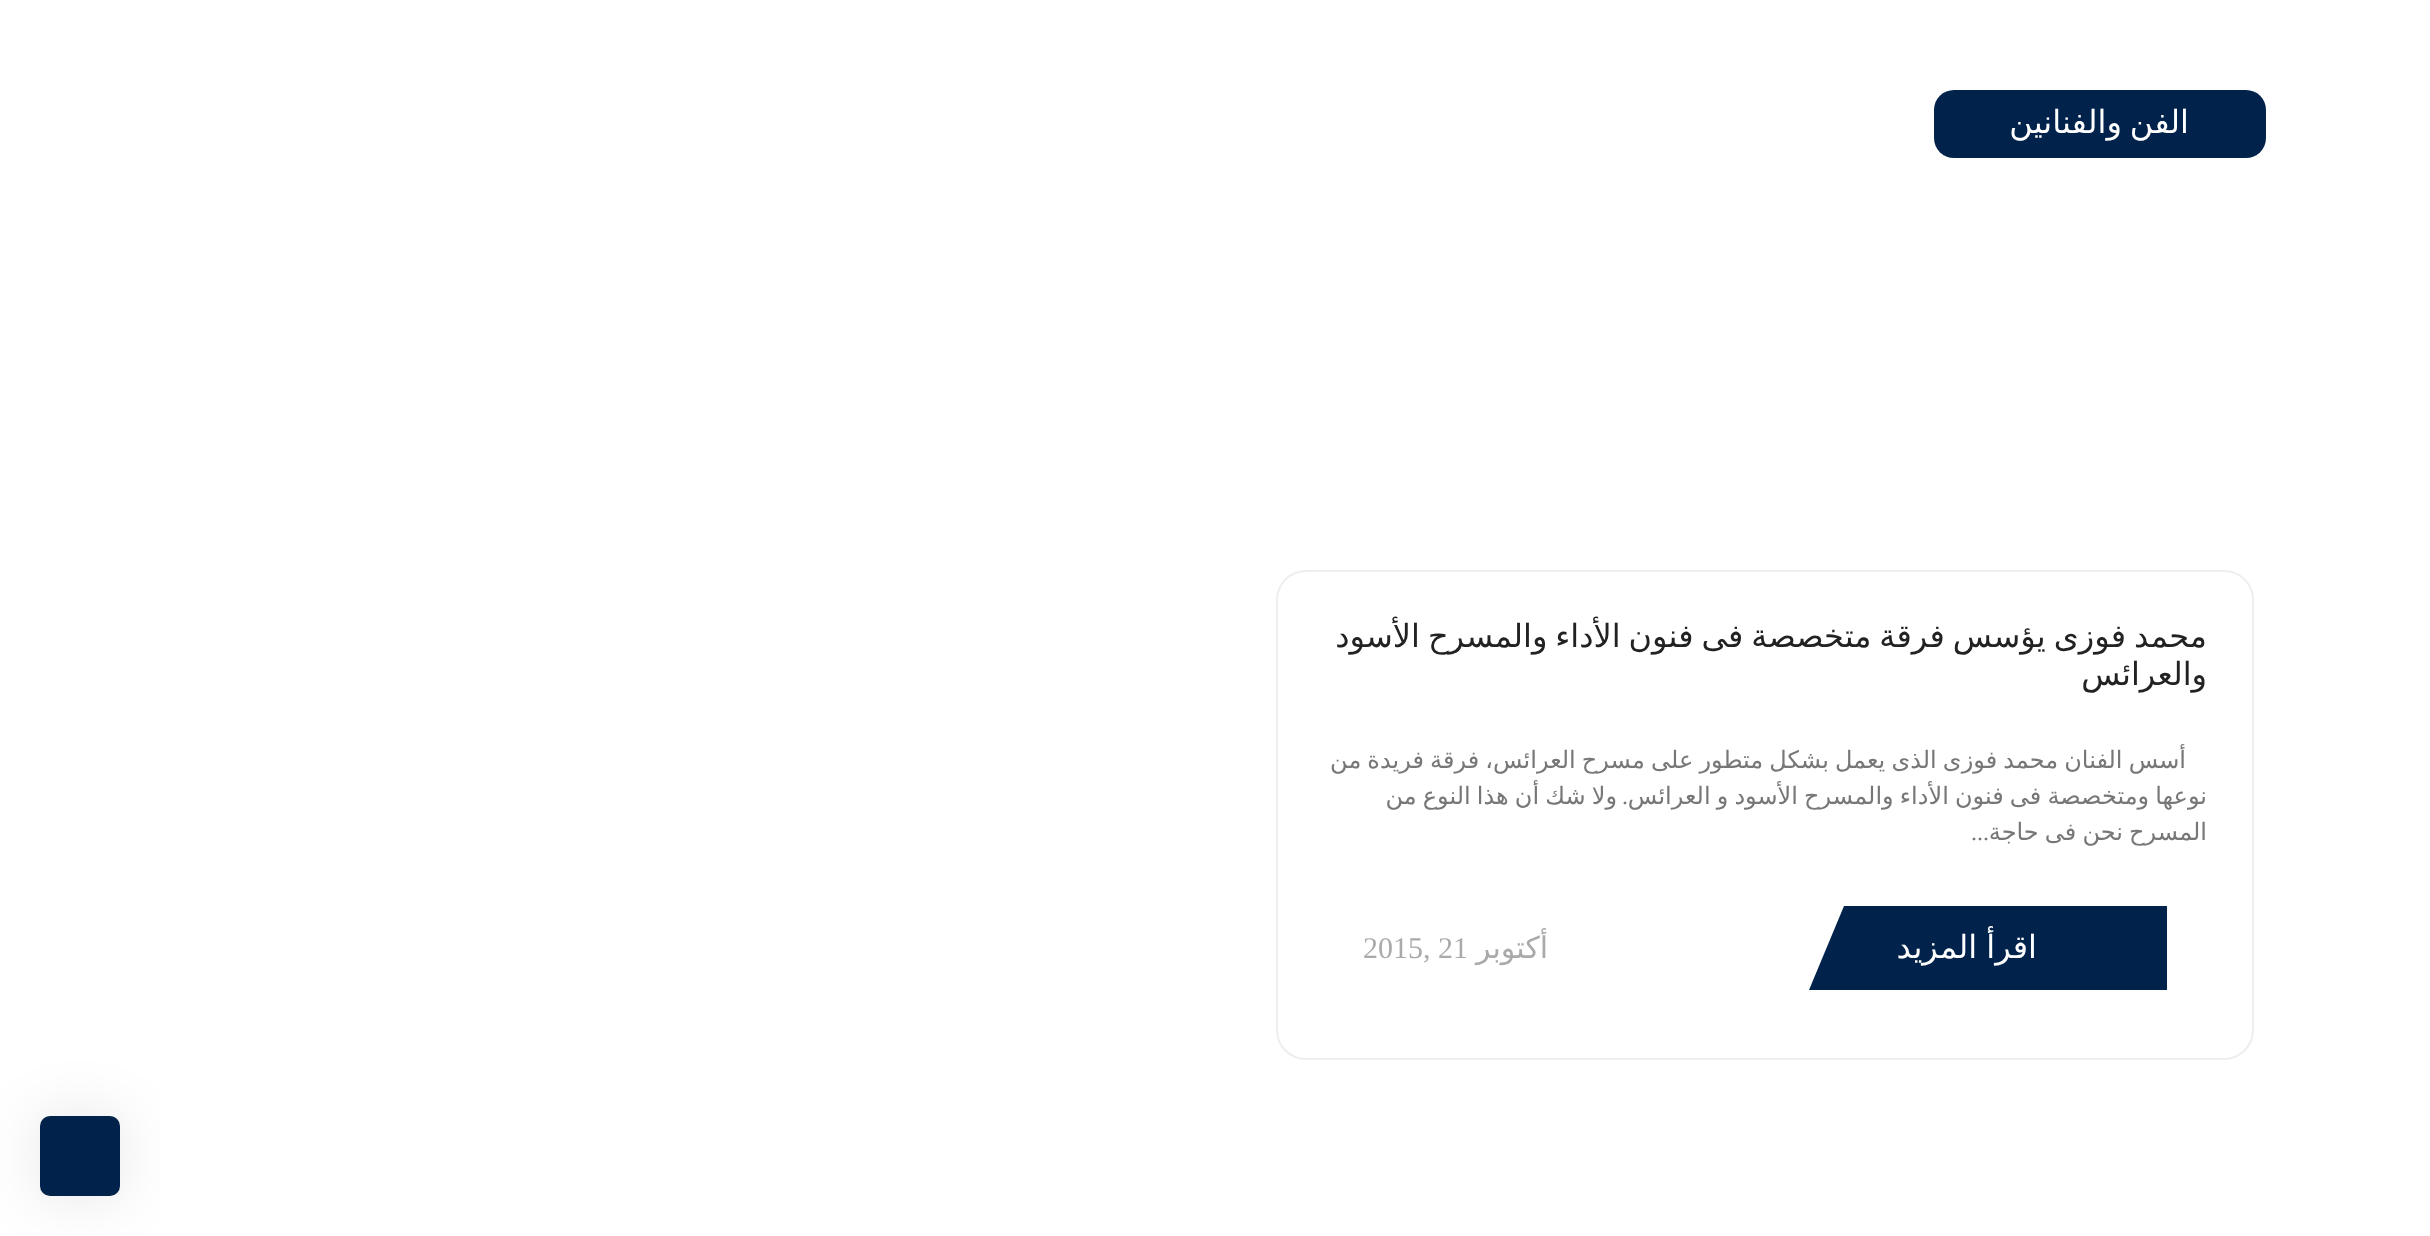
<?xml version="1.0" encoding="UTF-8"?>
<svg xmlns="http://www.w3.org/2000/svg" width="2430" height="1236">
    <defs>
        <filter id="blur1" x="-50%" y="-200%" width="200%" height="500%"><feGaussianBlur stdDeviation="30"/></filter>
    </defs>
    <rect width="100%" height="100%" fill="#FFFFFF"/>
    <rect x="1934" y="90" width="332" height="68" rx="20" fill="#01234B"/>
    <text x="2189" y="133" word-spacing="-2.25" font-family="DejaVu Sans" font-size="32" direction="rtl" fill="#FFFFFF">الفن والفنانين</text>
    <rect x="1277" y="571" width="976" height="488" rx="29" fill="none" stroke="#EEEEEE" stroke-width="2"/>
    <text font-family="DejaVu Sans" font-size="32" direction="rtl" fill="#222222">
        <tspan x="2207" y="647" word-spacing="-2.25">محمد فوزى يؤسس فرقة متخصصة فى فنون الأداء والمسرح الأسود</tspan>
        <tspan x="2207" y="685">والعرائس</tspan>
    </text>
    <text x="2186" y="768" word-spacing="-1.5" font-family="DejaVu Sans" font-size="24" direction="rtl" fill="#777777">أسس الفنان محمد فوزى الذى يعمل بشكل متطور على مسرح العرائس، فرقة فريدة من</text>
    <text x="2207" y="804" word-spacing="-1.5" font-family="DejaVu Sans" font-size="24" direction="rtl" fill="#777777">نوعها ومتخصصة فى فنون الأداء والمسرح الأسود و العرائس</text>
    <text x="1617" y="804" word-spacing="-1.5" font-family="DejaVu Sans" font-size="24" direction="rtl" fill="#777777">ولا شك أن هذا النوع من</text>
    <text x="1628" y="804" font-family="Liberation Serif" font-size="24" direction="rtl" fill="#777777">.</text>
    <text x="2207" y="840" word-spacing="-1.5" font-family="DejaVu Sans" font-size="24" direction="rtl" fill="#777777">المسرح نحن فى حاجة</text>
    <text x="1989" y="840" font-family="Liberation Serif" font-size="24" direction="rtl" fill="#777777">...</text>
    <path d="M 2167 906 V 990 H 1809 L 1844 906 Z" fill="#01234B"/>
    <text x="2037" y="958" word-spacing="-1" font-family="DejaVu Sans" font-size="32" direction="rtl" fill="#FFFFFF">اقرأ المزيد</text>
    <text x="1548" y="958" font-family="DejaVu Sans" font-size="30" direction="rtl" fill="#AAAAAA">أكتوبر</text>
    <text x="1363" y="958" font-family="Liberation Serif" font-size="30" fill="#AAAAAA">2015, 21</text>
    <rect x="40" y="1116" width="80" height="80" rx="10" fill="#000000" fill-opacity="0.1" filter="url(#blur1)"/>
    <rect x="40" y="1116" width="80" height="80" rx="10" fill="#01234B"/>
</svg>
